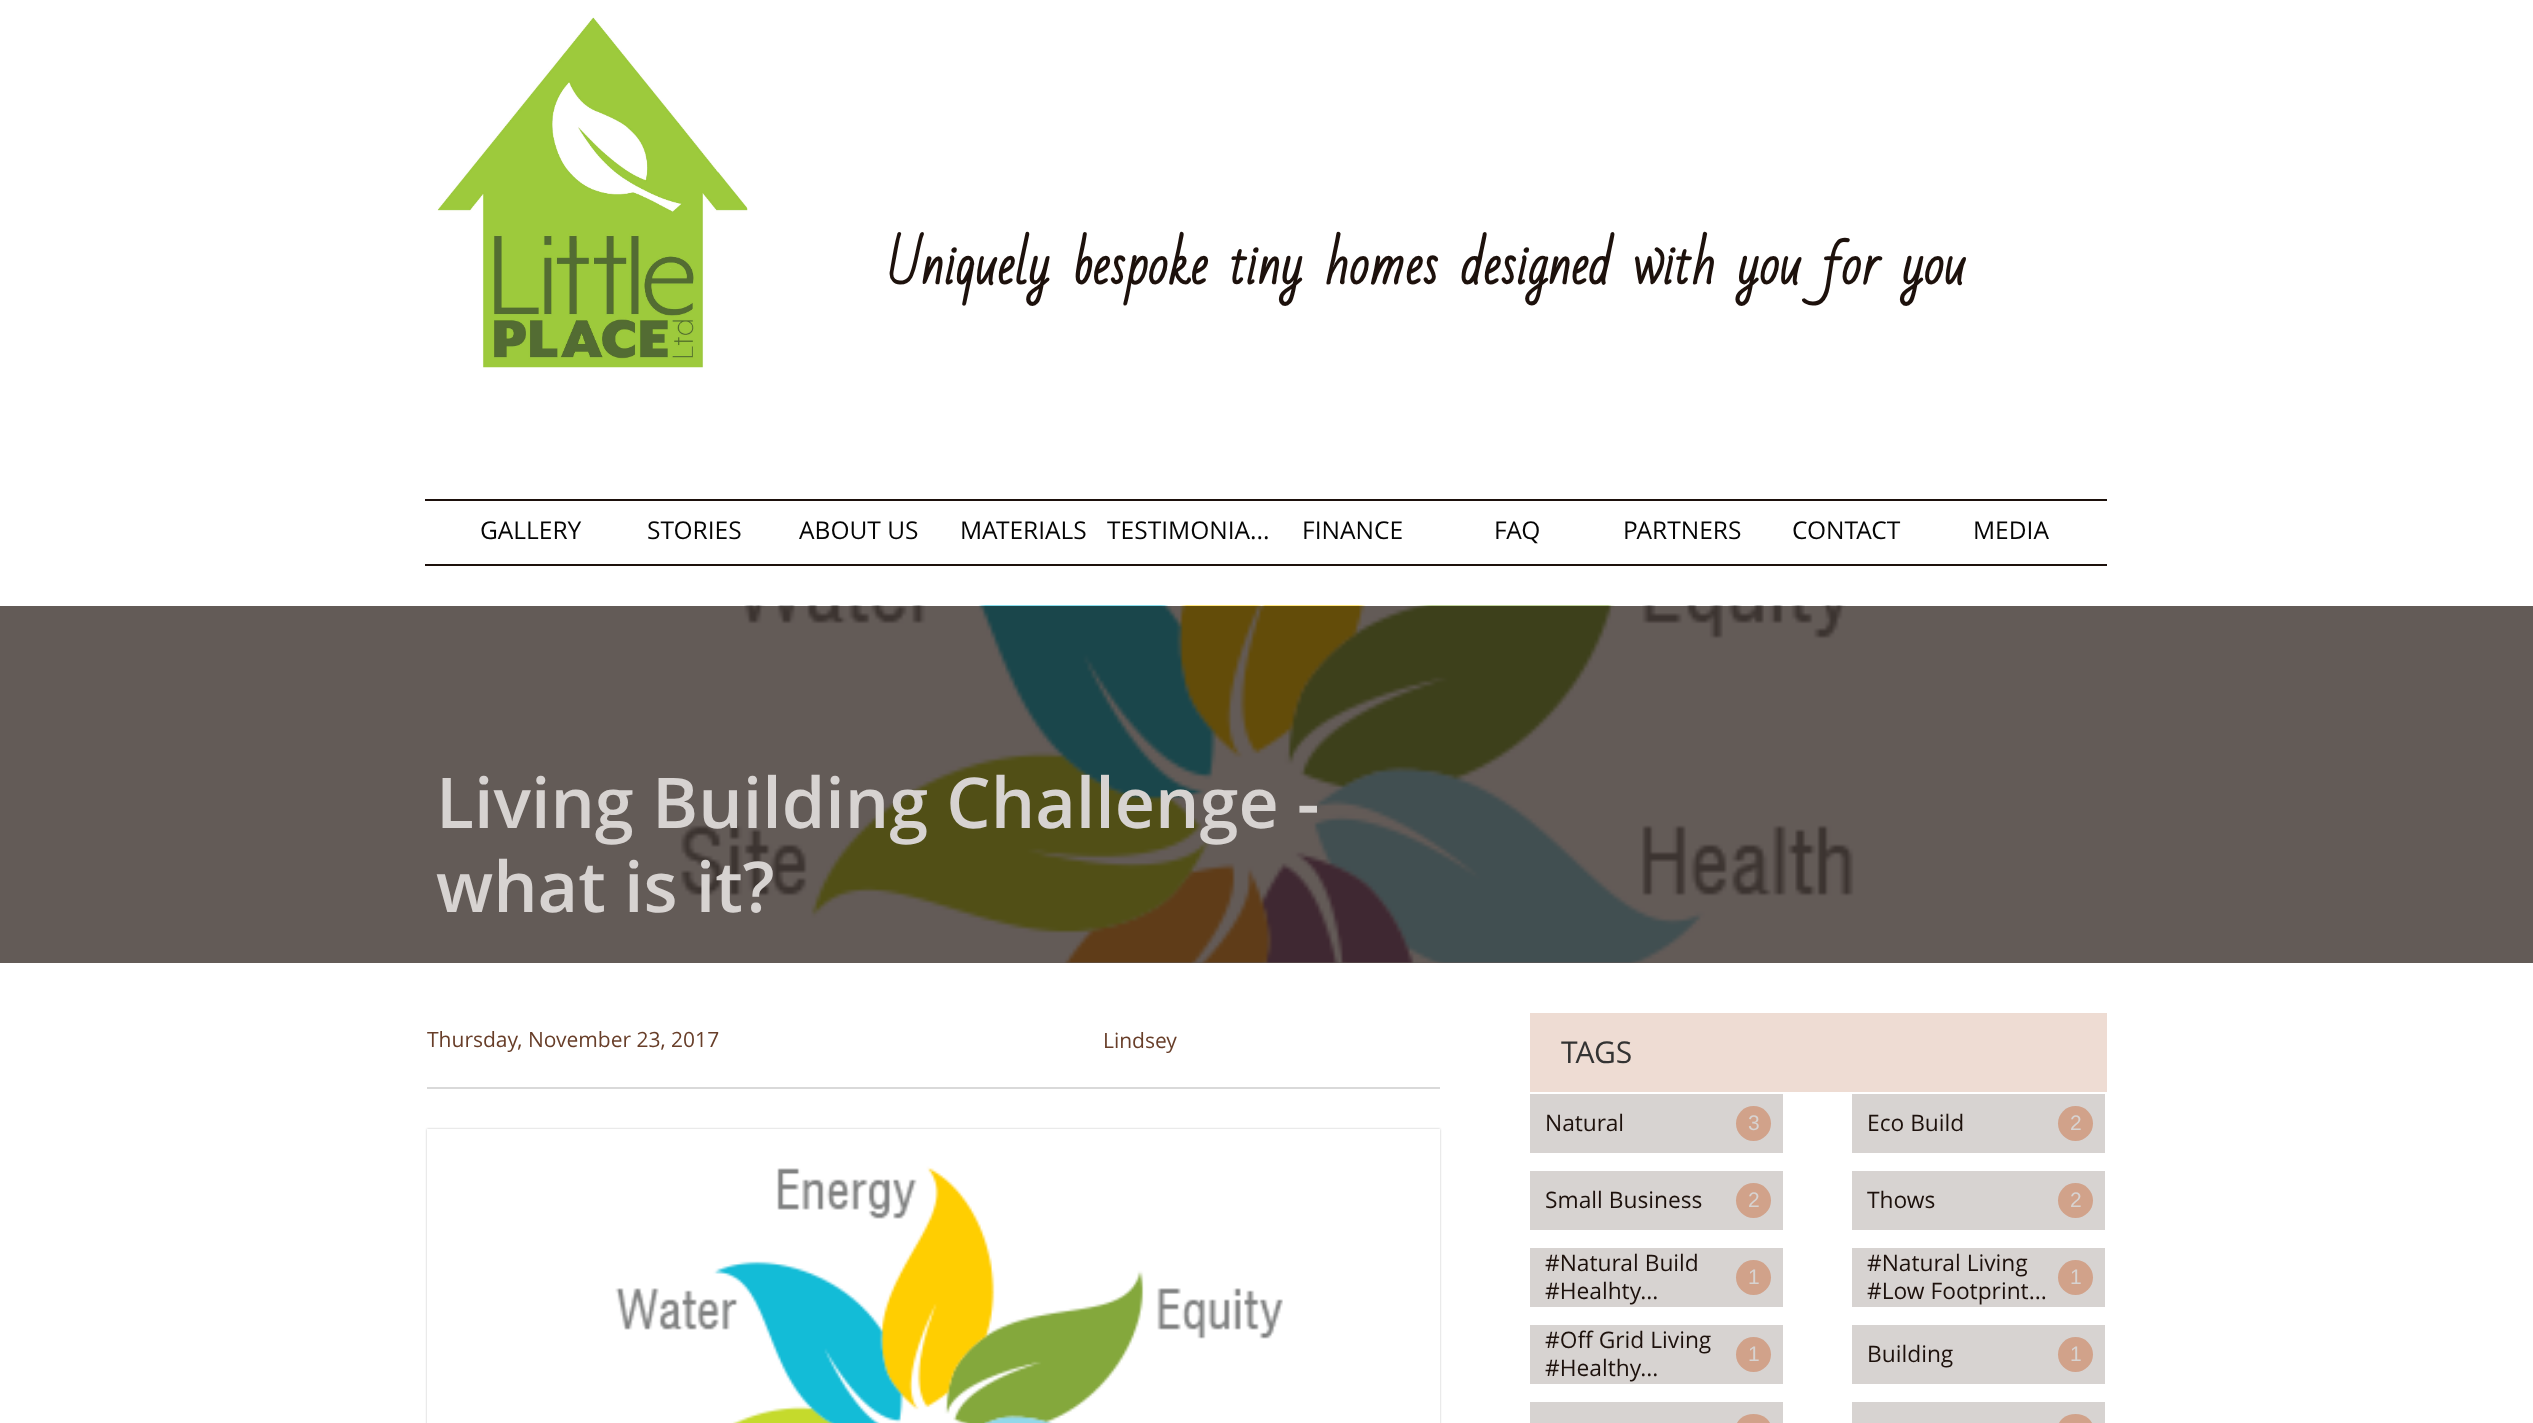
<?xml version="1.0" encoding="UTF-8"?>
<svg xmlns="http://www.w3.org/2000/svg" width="2533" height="1423">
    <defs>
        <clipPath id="clip1"><path d="M 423 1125 H 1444 V 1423 H 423 Z M 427 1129 H 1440 V 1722 H 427 Z" clip-rule="evenodd"/></clipPath>
        <filter id="blur1" x="-50%" y="-200%" width="200%" height="500%"><feGaussianBlur stdDeviation="1"/></filter>
    </defs>
    <rect width="100%" height="100%" fill="#FFFFFF"/>
    <rect x="0" y="606" width="2533" height="357" fill="#635B57"/>
    <image x="437" y="17" width="311" height="351" href="img_01.png"/>
    <text x="887" y="284" font-family="Bad Script" font-size="52.5" font-weight="700" fill="#1D110C">Uniquely bespoke tiny homes designed with you for you</text>
    <rect x="425" y="499" width="1682" height="2" fill="#1D110C"/>
    <text x="480" y="539" font-family="Open Sans" font-size="24.5" fill="#050505">GALLERY</text>
    <text x="647" y="539" font-family="Open Sans" font-size="24.5" fill="#050505">STORIES</text>
    <text x="799" y="539" font-family="Open Sans" font-size="24.5" fill="#050505">ABOUT US</text>
    <text x="960" y="539" font-family="Open Sans" font-size="24.5" fill="#050505">MATERIALS</text>
    <text x="1107" y="539" font-family="Open Sans" font-size="24.5" fill="#050505">TESTIMONIA...</text>
    <text x="1302" y="539" font-family="Open Sans" font-size="24.5" fill="#050505">FINANCE</text>
    <text x="1494" y="539" font-family="Open Sans" font-size="24.5" fill="#050505">FAQ</text>
    <text x="1623" y="539" font-family="Open Sans" font-size="24.5" fill="#050505">PARTNERS</text>
    <text x="1792" y="539" font-family="Open Sans" font-size="24.5" fill="#050505">CONTACT</text>
    <text x="1973" y="539" font-family="Open Sans" font-size="24.5" fill="#050505">MEDIA</text>
    <rect x="425" y="564" width="1682" height="2" fill="#1D110C"/>
    <image x="680" y="605" width="1174" height="358" href="img_02.png"/>
    <text font-family="Open Sans" font-size="70" font-weight="600" fill="#D7D3D1">
        <tspan x="436" y="828">Living Building Challenge -</tspan>
        <tspan x="436" y="912">what is it?</tspan>
    </text>
    <text x="427" y="1047" font-family="Open Sans" font-size="21" fill="#683E29">Thursday, November 23, 2017</text>
    <text x="1103" y="1048" font-family="Open Sans" font-size="21" fill="#683E29">Lindsey</text>
    <rect x="1530" y="1013" width="577" height="79" fill="#EEDCD3"/>
    <text x="1561" y="1063" font-family="Open Sans" font-size="30" fill="#333333">TAGS</text>
    <rect x="427" y="1087" width="1013" height="2" fill="#D9D9D9"/>
    <image x="615" y="1166" width="668" height="257" href="img_03.png"/>
    <g clip-path="url(#clip1)">
        <rect x="427" y="1129" width="1013" height="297" fill="#000000" fill-opacity="0.25" filter="url(#blur1)"/>
    </g>
    <rect x="1530" y="1094" width="253" height="59" fill="#D7D3D1"/>
    <text x="1545" y="1131" font-family="Open Sans" font-size="22.75" fill="#1D110C">Natural</text>
    <circle cx="1753.5" cy="1123.5" r="17.5" fill="#D1A28A"/>
    <text x="1748" y="1130" font-family="Liberation Sans" font-size="21" fill="#D7D3D1">3</text>
    <rect x="1852" y="1094" width="253" height="59" fill="#D7D3D1"/>
    <text x="1867" y="1131" font-family="Open Sans" font-size="22.75" fill="#1D110C">Eco Build</text>
    <circle cx="2075.5" cy="1123.5" r="17.5" fill="#D1A28A"/>
    <text x="2070" y="1130" font-family="Liberation Sans" font-size="21" fill="#D7D3D1">2</text>
    <rect x="1530" y="1171" width="253" height="59" fill="#D7D3D1"/>
    <text x="1545" y="1208" font-family="Open Sans" font-size="22.75" fill="#1D110C">Small Business</text>
    <circle cx="1753.5" cy="1200.5" r="17.5" fill="#D1A28A"/>
    <text x="1748" y="1207" font-family="Liberation Sans" font-size="21" fill="#D7D3D1">2</text>
    <rect x="1852" y="1171" width="253" height="59" fill="#D7D3D1"/>
    <text x="1867" y="1208" font-family="Open Sans" font-size="22.75" fill="#1D110C">Thows</text>
    <circle cx="2075.5" cy="1200.5" r="17.5" fill="#D1A28A"/>
    <text x="2070" y="1207" font-family="Liberation Sans" font-size="21" fill="#D7D3D1">2</text>
    <rect x="1530" y="1248" width="253" height="59" fill="#D7D3D1"/>
    <text font-family="Open Sans" font-size="22.75" fill="#1D110C">
        <tspan x="1545" y="1271">#Natural Build</tspan>
        <tspan x="1545" y="1299">#Healhty...</tspan>
    </text>
    <circle cx="1753.5" cy="1277.5" r="17.5" fill="#D1A28A"/>
    <text x="1748" y="1284" font-family="Liberation Sans" font-size="21" fill="#D7D3D1">1</text>
    <rect x="1852" y="1248" width="253" height="59" fill="#D7D3D1"/>
    <text font-family="Open Sans" font-size="22.75" fill="#1D110C">
        <tspan x="1867" y="1271">#Natural Living</tspan>
        <tspan x="1867" y="1299">#Low Footprint...</tspan>
    </text>
    <circle cx="2075.5" cy="1277.5" r="17.5" fill="#D1A28A"/>
    <text x="2070" y="1284" font-family="Liberation Sans" font-size="21" fill="#D7D3D1">1</text>
    <rect x="1530" y="1325" width="253" height="59" fill="#D7D3D1"/>
    <text font-family="Open Sans" font-size="22.75" fill="#1D110C">
        <tspan x="1545" y="1348">#Off Grid Living</tspan>
        <tspan x="1545" y="1376">#Healthy...</tspan>
    </text>
    <circle cx="1753.5" cy="1354.5" r="17.5" fill="#D1A28A"/>
    <text x="1748" y="1361" font-family="Liberation Sans" font-size="21" fill="#D7D3D1">1</text>
    <rect x="1852" y="1325" width="253" height="59" fill="#D7D3D1"/>
    <text x="1867" y="1362" font-family="Open Sans" font-size="22.75" fill="#1D110C">Building</text>
    <circle cx="2075.5" cy="1354.5" r="17.5" fill="#D1A28A"/>
    <text x="2070" y="1361" font-family="Liberation Sans" font-size="21" fill="#D7D3D1">1</text>
    <rect x="1530" y="1402" width="253" height="21" fill="#D7D3D1"/>
    <rect x="1736" y="1414" width="35" height="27" rx="17.5" fill="#D1A28A"/>
    <rect x="1852" y="1402" width="253" height="21" fill="#D7D3D1"/>
    <rect x="2058" y="1414" width="35" height="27" rx="17.5" fill="#D1A28A"/>
</svg>
